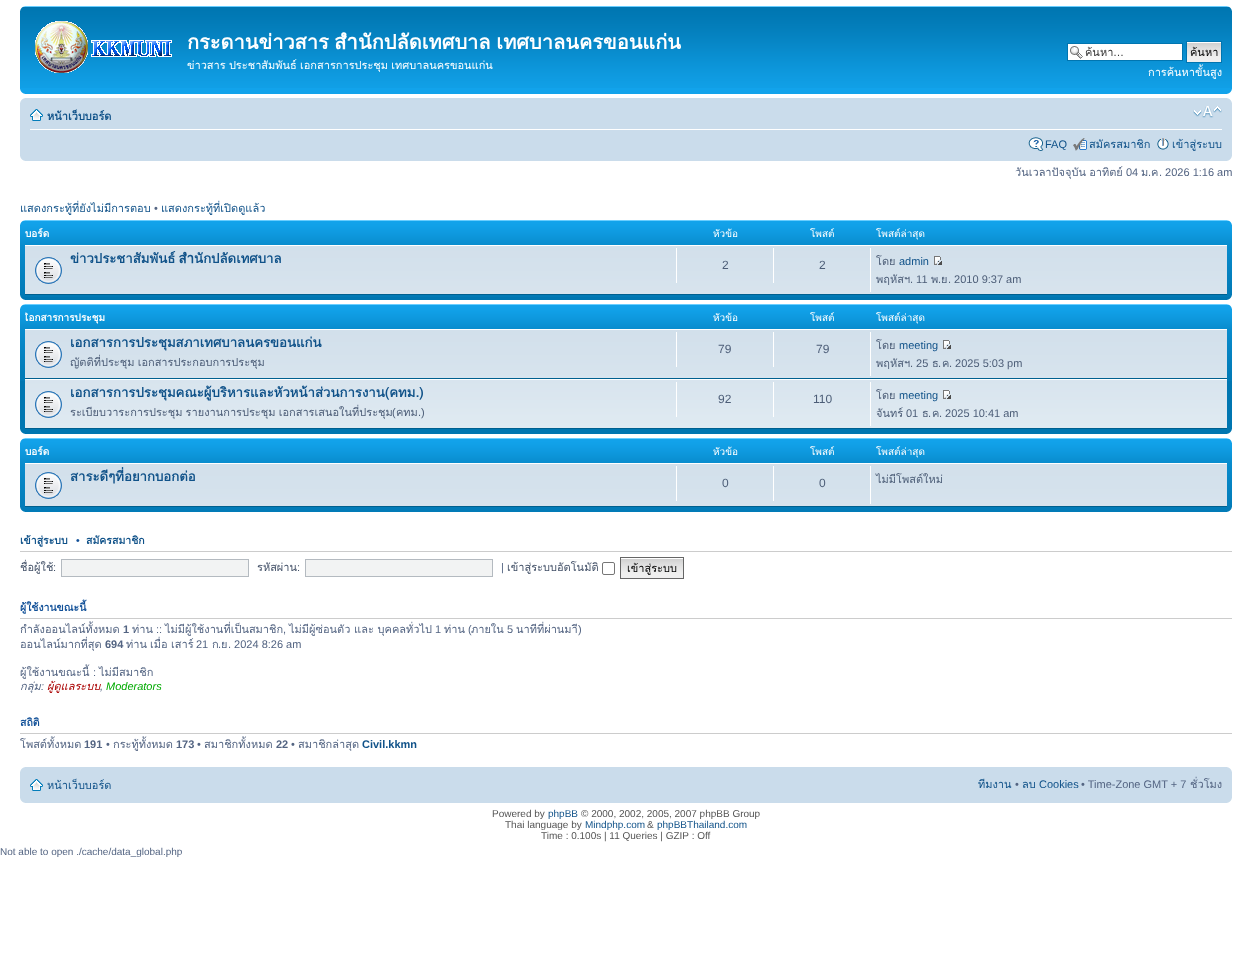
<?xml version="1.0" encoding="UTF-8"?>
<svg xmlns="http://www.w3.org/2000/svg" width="1252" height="977">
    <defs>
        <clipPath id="clip1"><rect x="1085" y="44" width="95" height="16"/></clipPath>
        <clipPath id="clip2"><rect x="1187" y="42" width="34" height="20"/></clipPath>
        <clipPath id="clip3"><rect x="25" y="309" width="1202" height="20"/></clipPath>
    </defs>
    <rect width="100%" height="100%" fill="#FFFFFF"/>
    <rect x="20" y="88" width="1212" height="6" fill="#12A3EB"/>
    <image x="20" y="6" width="1212" height="82" href="img_01.png"/>
    <image x="20" y="6" width="5" height="5" href="img_02.png"/>
    <image x="1227" y="6" width="5" height="5" href="img_03.png"/>
    <image x="35" y="21" width="137" height="52" href="img_04.png"/>
    <text x="187" y="49" word-spacing="-1" font-family="Loma" font-size="20" font-weight="700" fill="#FFFFFF">กระดานข่าวสาร สำนักปลัดเทศบาล เทศบาลนครขอนแก่น</text>
    <text x="187" y="69" word-spacing="-0.5" font-family="Loma" font-size="11" fill="#FFFFFF">ข่าวสาร ประชาสัมพันธ์ เอกสารการประชุม เทศบาลนครขอนแก่น</text>
    <rect x="1068" y="44" width="114" height="16" fill="#FFFFFF"/>
    <image x="1070" y="46" width="13" height="13" href="img_05.png"/>
    <rect x="1067.5" y="43.5" width="115" height="17" fill="none" stroke="#0075B0"/>
    <g clip-path="url(#clip1)">
        <text x="1085" y="56" font-family="Loma" font-size="11" fill="#333333">ค้นหา</text>
    </g>
    <text x="1113" y="56" font-family="Liberation Sans" font-size="11" fill="#333333">…</text>
    <image x="1187" y="42" width="34" height="20" href="img_06.png"/>
    <rect x="1186.5" y="41.5" width="35" height="21" fill="none" stroke="#0075B0"/>
    <g clip-path="url(#clip2)">
        <text x="1190" y="56" font-family="Loma" font-size="11" fill="#000000">ค้นหา</text>
    </g>
    <text x="1148" y="76" font-family="Loma" font-size="11" fill="#FFFFFF">การค้นหาขั้นสูง</text>
    <image x="20" y="89" width="5" height="5" href="img_07.png"/>
    <image x="1227" y="89" width="5" height="5" href="img_08.png"/>
    <rect x="20" y="98" width="1212" height="63" fill="#CADCEB"/>
    <image x="20" y="98" width="5" height="5" href="img_09.png"/>
    <image x="1227" y="98" width="5" height="5" href="img_10.png"/>
    <rect x="30" y="129" width="1192" height="1" fill="#FFFFFF"/>
    <image x="30" y="109" width="13" height="12" href="img_11.png"/>
    <text x="47" y="120" font-family="Loma" font-size="11" font-weight="700" fill="#105289">หน้าเว็บบอร์ด</text>
    <image x="1193" y="106" width="29" height="12" href="img_12.png"/>
    <image x="1028" y="137" width="16" height="14" href="img_13.png"/>
    <text x="1045" y="148" font-family="Liberation Sans" font-size="11" fill="#105289">FAQ</text>
    <image x="1073" y="138" width="14" height="13" href="img_14.png"/>
    <text x="1089" y="148" font-family="Loma" font-size="11" fill="#105289">สมัครสมาชิก</text>
    <image x="1157" y="138" width="12" height="12" href="img_15.png"/>
    <text x="1172" y="148" font-family="Loma" font-size="11" fill="#105289">เข้าสู่ระบบ</text>
    <image x="20" y="156" width="5" height="5" href="img_16.png"/>
    <image x="1227" y="156" width="5" height="5" href="img_17.png"/>
    <text x="1015" y="176" word-spacing="-0.5" font-family="Loma" font-size="11" fill="#536482">วันเวลาปัจจุบัน อาทิตย์</text>
    <text x="1126" y="176" font-family="Liberation Sans" font-size="11" fill="#536482">04</text>
    <text x="1141" y="176" font-family="Loma" font-size="11" fill="#536482">ม</text>
    <text x="1148" y="176" font-family="Liberation Sans" font-size="11" fill="#536482">.</text>
    <text x="1151" y="176" font-family="Loma" font-size="11" fill="#536482">ค</text>
    <text x="1159" y="176" font-family="Liberation Sans" font-size="11" fill="#536482">. 2026 1:16 am</text>
    <text x="20" y="212" font-family="Loma" font-size="11" fill="#105289">แสดงกระทู้ที่ยังไม่มีการตอบ</text>
    <text x="154" y="212" font-family="Liberation Sans" font-size="11" fill="#536482">•</text>
    <text x="161" y="212" font-family="Loma" font-size="11" fill="#105289">แสดงกระทู้ที่เปิดดูแล้ว</text>
    <rect x="20" y="297" width="1212" height="3" fill="#0076B1"/>
    <image x="20" y="220" width="1212" height="77" href="img_18.png"/>
    <image x="20" y="220" width="5" height="5" href="img_19.png"/>
    <image x="1227" y="220" width="5" height="5" href="img_20.png"/>
    <text x="25" y="237" font-family="Loma" font-size="10" font-weight="700" fill="#FFFFFF">บอร์ด</text>
    <text x="713" y="237" font-family="Loma" font-size="10" fill="#FFFFFF">หัวข้อ</text>
    <text x="810" y="237" font-family="Loma" font-size="10" fill="#FFFFFF">โพสต์</text>
    <text x="876" y="237" font-family="Loma" font-size="10" fill="#FFFFFF">โพสต์ล่าสุด</text>
    <image x="25" y="246" width="1202" height="48" href="img_21.png"/>
    <rect x="25" y="245" width="1202" height="1" fill="#FFFFFF"/>
    <rect x="25" y="294" width="1202" height="1" fill="#00608F"/>
    <image x="35" y="257" width="27" height="27" href="img_22.png"/>
    <text x="70" y="263" word-spacing="-1" font-family="Loma" font-size="13.2" font-weight="700" fill="#105289">ข่าวประชาสัมพันธ์ สำนักปลัดเทศบาล</text>
    <rect x="676" y="248" width="1" height="35" fill="#FFFFFF"/>
    <text x="722" y="269" font-family="Liberation Sans" font-size="12" fill="#4C5D77">2</text>
    <rect x="773" y="248" width="1" height="35" fill="#FFFFFF"/>
    <text x="819" y="269" font-family="Liberation Sans" font-size="12" fill="#4C5D77">2</text>
    <rect x="870" y="248" width="1" height="44" fill="#FFFFFF"/>
    <text x="876" y="265" font-family="Loma" font-size="11" fill="#4C5D77">โดย</text>
    <text x="899" y="265" font-family="Liberation Sans" font-size="11" fill="#105289">admin</text>
    <image x="934" y="256" width="8" height="9" href="img_23.png"/>
    <text x="876" y="283" font-family="Loma" font-size="11" fill="#4C5D77">พฤหัสฯ</text>
    <text x="910" y="283" font-family="Liberation Sans" font-size="11" fill="#4C5D77">. 11</text>
    <text x="931" y="283" font-family="Loma" font-size="11" fill="#4C5D77">พ</text>
    <text x="938" y="283" font-family="Liberation Sans" font-size="11" fill="#4C5D77">.</text>
    <text x="941" y="283" font-family="Loma" font-size="11" fill="#4C5D77">ย</text>
    <text x="948" y="283" font-family="Liberation Sans" font-size="11" fill="#4C5D77">. 2010 9:37 am</text>
    <image x="20" y="295" width="5" height="5" href="img_24.png"/>
    <image x="1227" y="295" width="5" height="5" href="img_25.png"/>
    <rect x="20" y="381" width="1212" height="53" fill="#0076B1"/>
    <image x="20" y="304" width="1212" height="77" href="img_18.png"/>
    <image x="20" y="304" width="5" height="5" href="img_19.png"/>
    <image x="1227" y="304" width="5" height="5" href="img_20.png"/>
    <g clip-path="url(#clip3)">
        <text x="25" y="321" font-family="Loma" font-size="10" font-weight="700" fill="#FFFFFF">เิอกสารการประชุม</text>
    </g>
    <text x="713" y="321" font-family="Loma" font-size="10" fill="#FFFFFF">หัวข้อ</text>
    <text x="810" y="321" font-family="Loma" font-size="10" fill="#FFFFFF">โพสต์</text>
    <text x="876" y="321" font-family="Loma" font-size="10" fill="#FFFFFF">โพสต์ล่าสุด</text>
    <image x="25" y="330" width="1202" height="98" href="img_26.png"/>
    <rect x="25" y="329" width="1202" height="1" fill="#FFFFFF"/>
    <rect x="25" y="378" width="1202" height="1" fill="#00608F"/>
    <image x="35" y="341" width="27" height="27" href="img_22.png"/>
    <text x="70" y="347" font-family="Loma" font-size="13.2" font-weight="700" fill="#105289">เอกสารการประชุมสภาเทศบาลนครขอนแก่น</text>
    <text x="70" y="366" word-spacing="-0.5" font-family="Loma" font-size="11" fill="#4C5D77">ญัตติที่ประชุม เอกสารประกอบการประชุม</text>
    <rect x="676" y="332" width="1" height="35" fill="#FFFFFF"/>
    <text x="718" y="353" font-family="Liberation Sans" font-size="12" fill="#4C5D77">79</text>
    <rect x="773" y="332" width="1" height="35" fill="#FFFFFF"/>
    <text x="816" y="353" font-family="Liberation Sans" font-size="12" fill="#4C5D77">79</text>
    <rect x="870" y="332" width="1" height="44" fill="#FFFFFF"/>
    <text x="876" y="349" font-family="Loma" font-size="11" fill="#4C5D77">โดย</text>
    <text x="899" y="349" font-family="Liberation Sans" font-size="11" fill="#105289">meeting</text>
    <image x="943" y="340" width="8" height="9" href="img_23.png"/>
    <text x="876" y="367" font-family="Loma" font-size="11" fill="#4C5D77">พฤหัสฯ</text>
    <text x="910" y="367" font-family="Liberation Sans" font-size="11" fill="#4C5D77">. 25</text>
    <text x="932" y="367" font-family="Loma" font-size="11" fill="#4C5D77">ธ</text>
    <text x="938" y="367" font-family="Liberation Sans" font-size="11" fill="#4C5D77">.</text>
    <text x="942" y="367" font-family="Loma" font-size="11" fill="#4C5D77">ค</text>
    <text x="949" y="367" font-family="Liberation Sans" font-size="11" fill="#4C5D77">. 2025 5:03 pm</text>
    <rect x="25" y="379" width="1202" height="1" fill="#FFFFFF"/>
    <rect x="25" y="428" width="1202" height="1" fill="#00608F"/>
    <image x="35" y="391" width="27" height="27" href="img_27.png"/>
    <text x="70" y="397" font-family="Loma" font-size="13.2" font-weight="700" fill="#105289">เอกสารการประชุมคณะผู้บริหารและหัวหน้าส่วนการงาน(คทม.)</text>
    <text x="70" y="416" word-spacing="-0.5" font-family="Loma" font-size="11" fill="#4C5D77">ระเบียบวาระการประชุม รายงานการประชุม เอกสารเสนอในที่ประชุม</text>
    <text x="392" y="416" font-family="Liberation Sans" font-size="11" fill="#4C5D77">(</text>
    <text x="396" y="416" font-family="Loma" font-size="11" fill="#4C5D77">คทม</text>
    <text x="418" y="416" font-family="Liberation Sans" font-size="11" fill="#4C5D77">.)</text>
    <rect x="676" y="382" width="1" height="35" fill="#FFFFFF"/>
    <text x="718" y="403" font-family="Liberation Sans" font-size="12" fill="#4C5D77">92</text>
    <rect x="773" y="382" width="1" height="35" fill="#FFFFFF"/>
    <text x="813" y="403" font-family="Liberation Sans" font-size="12" fill="#4C5D77">110</text>
    <rect x="870" y="382" width="1" height="44" fill="#FFFFFF"/>
    <text x="876" y="399" font-family="Loma" font-size="11" fill="#4C5D77">โดย</text>
    <text x="899" y="399" font-family="Liberation Sans" font-size="11" fill="#105289">meeting</text>
    <image x="943" y="390" width="8" height="9" href="img_28.png"/>
    <text x="876" y="417" font-family="Loma" font-size="11" fill="#4C5D77">จันทร์</text>
    <text x="906" y="417" font-family="Liberation Sans" font-size="11" fill="#4C5D77">01</text>
    <text x="922" y="417" font-family="Loma" font-size="11" fill="#4C5D77">ธ</text>
    <text x="928" y="417" font-family="Liberation Sans" font-size="11" fill="#4C5D77">.</text>
    <text x="932" y="417" font-family="Loma" font-size="11" fill="#4C5D77">ค</text>
    <text x="939" y="417" font-family="Liberation Sans" font-size="11" fill="#4C5D77">. 2025 10:41 am</text>
    <image x="20" y="429" width="5" height="5" href="img_29.png"/>
    <image x="1227" y="429" width="5" height="5" href="img_30.png"/>
    <image x="20" y="438" width="1212" height="74" href="img_31.png"/>
    <image x="20" y="438" width="5" height="5" href="img_19.png"/>
    <image x="1227" y="438" width="5" height="5" href="img_20.png"/>
    <text x="25" y="455" font-family="Loma" font-size="10" font-weight="700" fill="#FFFFFF">บอร์ด</text>
    <text x="713" y="455" font-family="Loma" font-size="10" fill="#FFFFFF">หัวข้อ</text>
    <text x="810" y="455" font-family="Loma" font-size="10" fill="#FFFFFF">โพสต์</text>
    <text x="876" y="455" font-family="Loma" font-size="10" fill="#FFFFFF">โพสต์ล่าสุด</text>
    <image x="25" y="464" width="1202" height="42" href="img_32.png"/>
    <rect x="25" y="463" width="1202" height="1" fill="#FFFFFF"/>
    <rect x="25" y="506" width="1202" height="1" fill="#00608F"/>
    <image x="35" y="472" width="27" height="27" href="img_33.png"/>
    <text x="70" y="481" font-family="Loma" font-size="13.2" font-weight="700" fill="#105289">สาระดีๆที่อยากบอกต่อ</text>
    <rect x="676" y="466" width="1" height="35" fill="#FFFFFF"/>
    <text x="722" y="487" font-family="Liberation Sans" font-size="12" fill="#4C5D77">0</text>
    <rect x="773" y="466" width="1" height="35" fill="#FFFFFF"/>
    <text x="819" y="487" font-family="Liberation Sans" font-size="12" fill="#4C5D77">0</text>
    <rect x="870" y="466" width="1" height="38" fill="#FFFFFF"/>
    <text x="876" y="483" font-family="Loma" font-size="11" fill="#4C5D77">ไม่มีโพสต์ใหม่</text>
    <image x="20" y="507" width="5" height="5" href="img_34.png"/>
    <image x="1227" y="507" width="5" height="5" href="img_35.png"/>
    <rect x="20" y="551" width="1212" height="1" fill="#CCCCCC"/>
    <text x="20" y="544" font-family="Loma" font-size="10.5" font-weight="700" fill="#105289">เข้าสู่ระบบ</text>
    <text x="76" y="544" font-family="Liberation Sans" font-size="10.5" font-weight="700" fill="#115098">•</text>
    <text x="86" y="544" font-family="Loma" font-size="10.5" font-weight="700" fill="#105289">สมัครสมาชิก</text>
    <text x="20" y="571" font-family="Loma" font-size="11" fill="#425067">ชื่อผู้ใช้</text>
    <text x="53" y="571" font-family="Liberation Sans" font-size="11" fill="#425067">:</text>
    <rect x="61.5" y="559.5" width="187" height="17" fill="#F2F3F3" stroke="#B4BAC0"/>
    <text x="257" y="571" font-family="Loma" font-size="11" fill="#425067">รหัสผ่าน</text>
    <text x="297" y="571" font-family="Liberation Sans" font-size="11" fill="#425067">:</text>
    <rect x="305.5" y="559.5" width="187" height="17" fill="#F2F3F3" stroke="#B4BAC0"/>
    <text x="501" y="571" font-family="Liberation Sans" font-size="11" fill="#536482">|</text>
    <text x="507" y="571" font-family="Loma" font-size="11" fill="#425067">เข้าสู่ระบบอัตโนมัติ</text>
    <rect x="602.5" y="562.5" width="12" height="12" rx="1.5" fill="none" stroke="#767676"/>
    <image x="621" y="558" width="62" height="20" href="img_36.png"/>
    <rect x="620.5" y="557.5" width="63" height="21" fill="none" stroke="#666666"/>
    <text x="627" y="572" font-family="Loma" font-size="11" fill="#000000">เข้าสู่ระบบ</text>
    <rect x="20" y="618" width="1212" height="1" fill="#CCCCCC"/>
    <text x="20" y="611" font-family="Loma" font-size="10.5" font-weight="700" fill="#115098">ผู้ใช้งานขณะนี้</text>
    <text x="20" y="633" font-family="Loma" font-size="11" fill="#536482">กำลังออนไลน์ทั้งหมด</text>
    <text x="123" y="633" font-family="Liberation Sans" font-size="11" font-weight="700" fill="#536482">1</text>
    <text x="132" y="633" font-family="Loma" font-size="11" fill="#536482">ท่าน</text>
    <text x="156" y="633" font-family="Liberation Sans" font-size="11" fill="#536482">::</text>
    <text x="165" y="633" font-family="Loma" font-size="11" fill="#536482">ไม่มีผู้ใช้งานที่เป็นสมาชิก</text>
    <text x="283" y="633" font-family="Liberation Sans" font-size="11" fill="#536482">,</text>
    <text x="289" y="633" font-family="Loma" font-size="11" fill="#536482">ไม่มีผู้ซ่อนตัว และ บุคคลทั่วไป</text>
    <text x="435" y="633" font-family="Liberation Sans" font-size="11" fill="#536482">1</text>
    <text x="444" y="633" font-family="Loma" font-size="11" fill="#536482">ท่าน</text>
    <text x="468" y="633" font-family="Liberation Sans" font-size="11" fill="#536482">(</text>
    <text x="471" y="633" font-family="Loma" font-size="11" fill="#536482">ภายใน</text>
    <text x="507" y="633" font-family="Liberation Sans" font-size="11" fill="#536482">5</text>
    <text x="516" y="633" font-family="Loma" font-size="11" fill="#536482">นาทีที่ผ่านมาี</text>
    <text x="578" y="633" font-family="Liberation Sans" font-size="11" fill="#536482">)</text>
    <text x="20" y="648" font-family="Loma" font-size="11" fill="#536482">ออนไลน์มากที่สุด</text>
    <text x="105" y="648" font-family="Liberation Sans" font-size="11" font-weight="700" fill="#536482">694</text>
    <text x="126" y="648" font-family="Loma" font-size="11" fill="#536482">ท่าน</text>
    <text x="150" y="648" font-family="Loma" font-size="11" fill="#536482">เมื่อ</text>
    <text x="171" y="648" font-family="Loma" font-size="11" fill="#536482">เสาร์</text>
    <text x="196" y="648" font-family="Liberation Sans" font-size="11" fill="#536482">21</text>
    <text x="212" y="648" font-family="Loma" font-size="11" fill="#536482">ก</text>
    <text x="218" y="648" font-family="Liberation Sans" font-size="11" fill="#536482">.</text>
    <text x="221" y="648" font-family="Loma" font-size="11" fill="#536482">ย</text>
    <text x="228" y="648" font-family="Liberation Sans" font-size="11" fill="#536482">. 2024 8:26 am</text>
    <text x="20" y="676" font-family="Loma" font-size="11" fill="#536482">ผู้ใช้งานขณะนี้</text>
    <text x="93" y="676" font-family="Liberation Sans" font-size="11" fill="#536482">:</text>
    <text x="99" y="676" font-family="Loma" font-size="11" fill="#536482">ไม่มีสมาชิก</text>
    <text x="20" y="690" font-family="Loma" font-size="11" font-style="italic" fill="#536482">กลุ่ม</text>
    <text x="41" y="690" font-family="Liberation Sans" font-size="11" font-style="italic" fill="#536482">:</text>
    <text x="47" y="690" font-family="Loma" font-size="11" font-style="italic" fill="#AA0000">ผู้ดูแลระบบ</text>
    <text x="106" y="690" font-family="Liberation Sans" font-size="11" font-style="italic" fill="#00AA00">Moderators</text>
    <text x="100" y="690" font-family="Liberation Sans" font-size="11" font-style="italic" fill="#536482">,</text>
    <rect x="20" y="733" width="1212" height="1" fill="#CCCCCC"/>
    <text x="20" y="726" font-family="Loma" font-size="10.5" font-weight="700" fill="#115098">สถิติ</text>
    <text x="20" y="748" font-family="Loma" font-size="11" fill="#536482">โพสต์ทั้งหมด</text>
    <text x="84" y="748" font-family="Liberation Sans" font-size="11" font-weight="700" fill="#536482">191</text>
    <text x="106" y="748" font-family="Liberation Sans" font-size="11" fill="#536482">•</text>
    <text x="113" y="748" font-family="Loma" font-size="11" fill="#536482">กระทู้ทั้งหมด</text>
    <text x="176" y="748" font-family="Liberation Sans" font-size="11" font-weight="700" fill="#536482">173</text>
    <text x="197" y="748" font-family="Liberation Sans" font-size="11" fill="#536482">•</text>
    <text x="204" y="748" font-family="Loma" font-size="11" fill="#536482">สมาชิกทั้งหมด</text>
    <text x="276" y="748" font-family="Liberation Sans" font-size="11" font-weight="700" fill="#536482">22</text>
    <text x="291" y="748" font-family="Liberation Sans" font-size="11" fill="#536482">•</text>
    <text x="298" y="748" font-family="Loma" font-size="11" fill="#536482">สมาชิกล่าสุด</text>
    <text x="362" y="748" font-family="Liberation Sans" font-size="11" font-weight="700" fill="#105289">Civil.kkmn</text>
    <rect x="20" y="767" width="1212" height="36" fill="#CADCEB"/>
    <image x="20" y="767" width="5" height="5" href="img_09.png"/>
    <image x="1227" y="767" width="5" height="5" href="img_10.png"/>
    <image x="30" y="779" width="13" height="12" href="img_11.png"/>
    <text x="47" y="789" font-family="Loma" font-size="11" fill="#105289">หน้าเว็บบอร์ด</text>
    <text x="978" y="788" font-family="Loma" font-size="11" fill="#105289">ทีมงาน</text>
    <text x="1015" y="788" font-family="Liberation Sans" font-size="11" fill="#536482">•</text>
    <text x="1022" y="788" font-family="Loma" font-size="11" fill="#105289">ลบ</text>
    <text x="1039" y="788" font-family="Liberation Sans" font-size="11" fill="#105289">Cookies</text>
    <text x="1081" y="788" font-family="Liberation Sans" font-size="11" fill="#536482">• Time-Zone GMT + 7</text>
    <text x="1190" y="788" font-family="Loma" font-size="11" fill="#536482">ชั่วโมง</text>
    <image x="20" y="798" width="5" height="5" href="img_16.png"/>
    <image x="1227" y="798" width="5" height="5" href="img_17.png"/>
    <text x="492" y="817" font-family="Liberation Sans" font-size="10" fill="#555555">Powered by</text>
    <text x="548" y="817" font-family="Liberation Sans" font-size="10" fill="#105289">phpBB</text>
    <text x="581" y="817" font-family="Liberation Sans" font-size="10" fill="#555555">© 2000, 2002, 2005, 2007 phpBB Group</text>
    <text x="505" y="828" font-family="Liberation Sans" font-size="10" fill="#555555">Thai language by</text>
    <text x="585" y="828" font-family="Liberation Sans" font-size="10" fill="#105289">Mindphp.com</text>
    <text x="647" y="828" font-family="Liberation Sans" font-size="10" fill="#555555">&amp;</text>
    <text x="657" y="828" font-family="Liberation Sans" font-size="10" fill="#105289">phpBBThailand.com</text>
    <text x="541" y="839" font-family="Liberation Sans" font-size="10" fill="#555555">Time : 0.100s | 11 Queries | GZIP : Off</text>
    <text x="0" y="855" font-family="Liberation Sans" font-size="10" fill="#536482">Not able to open ./cache/data_global.php</text>
</svg>
